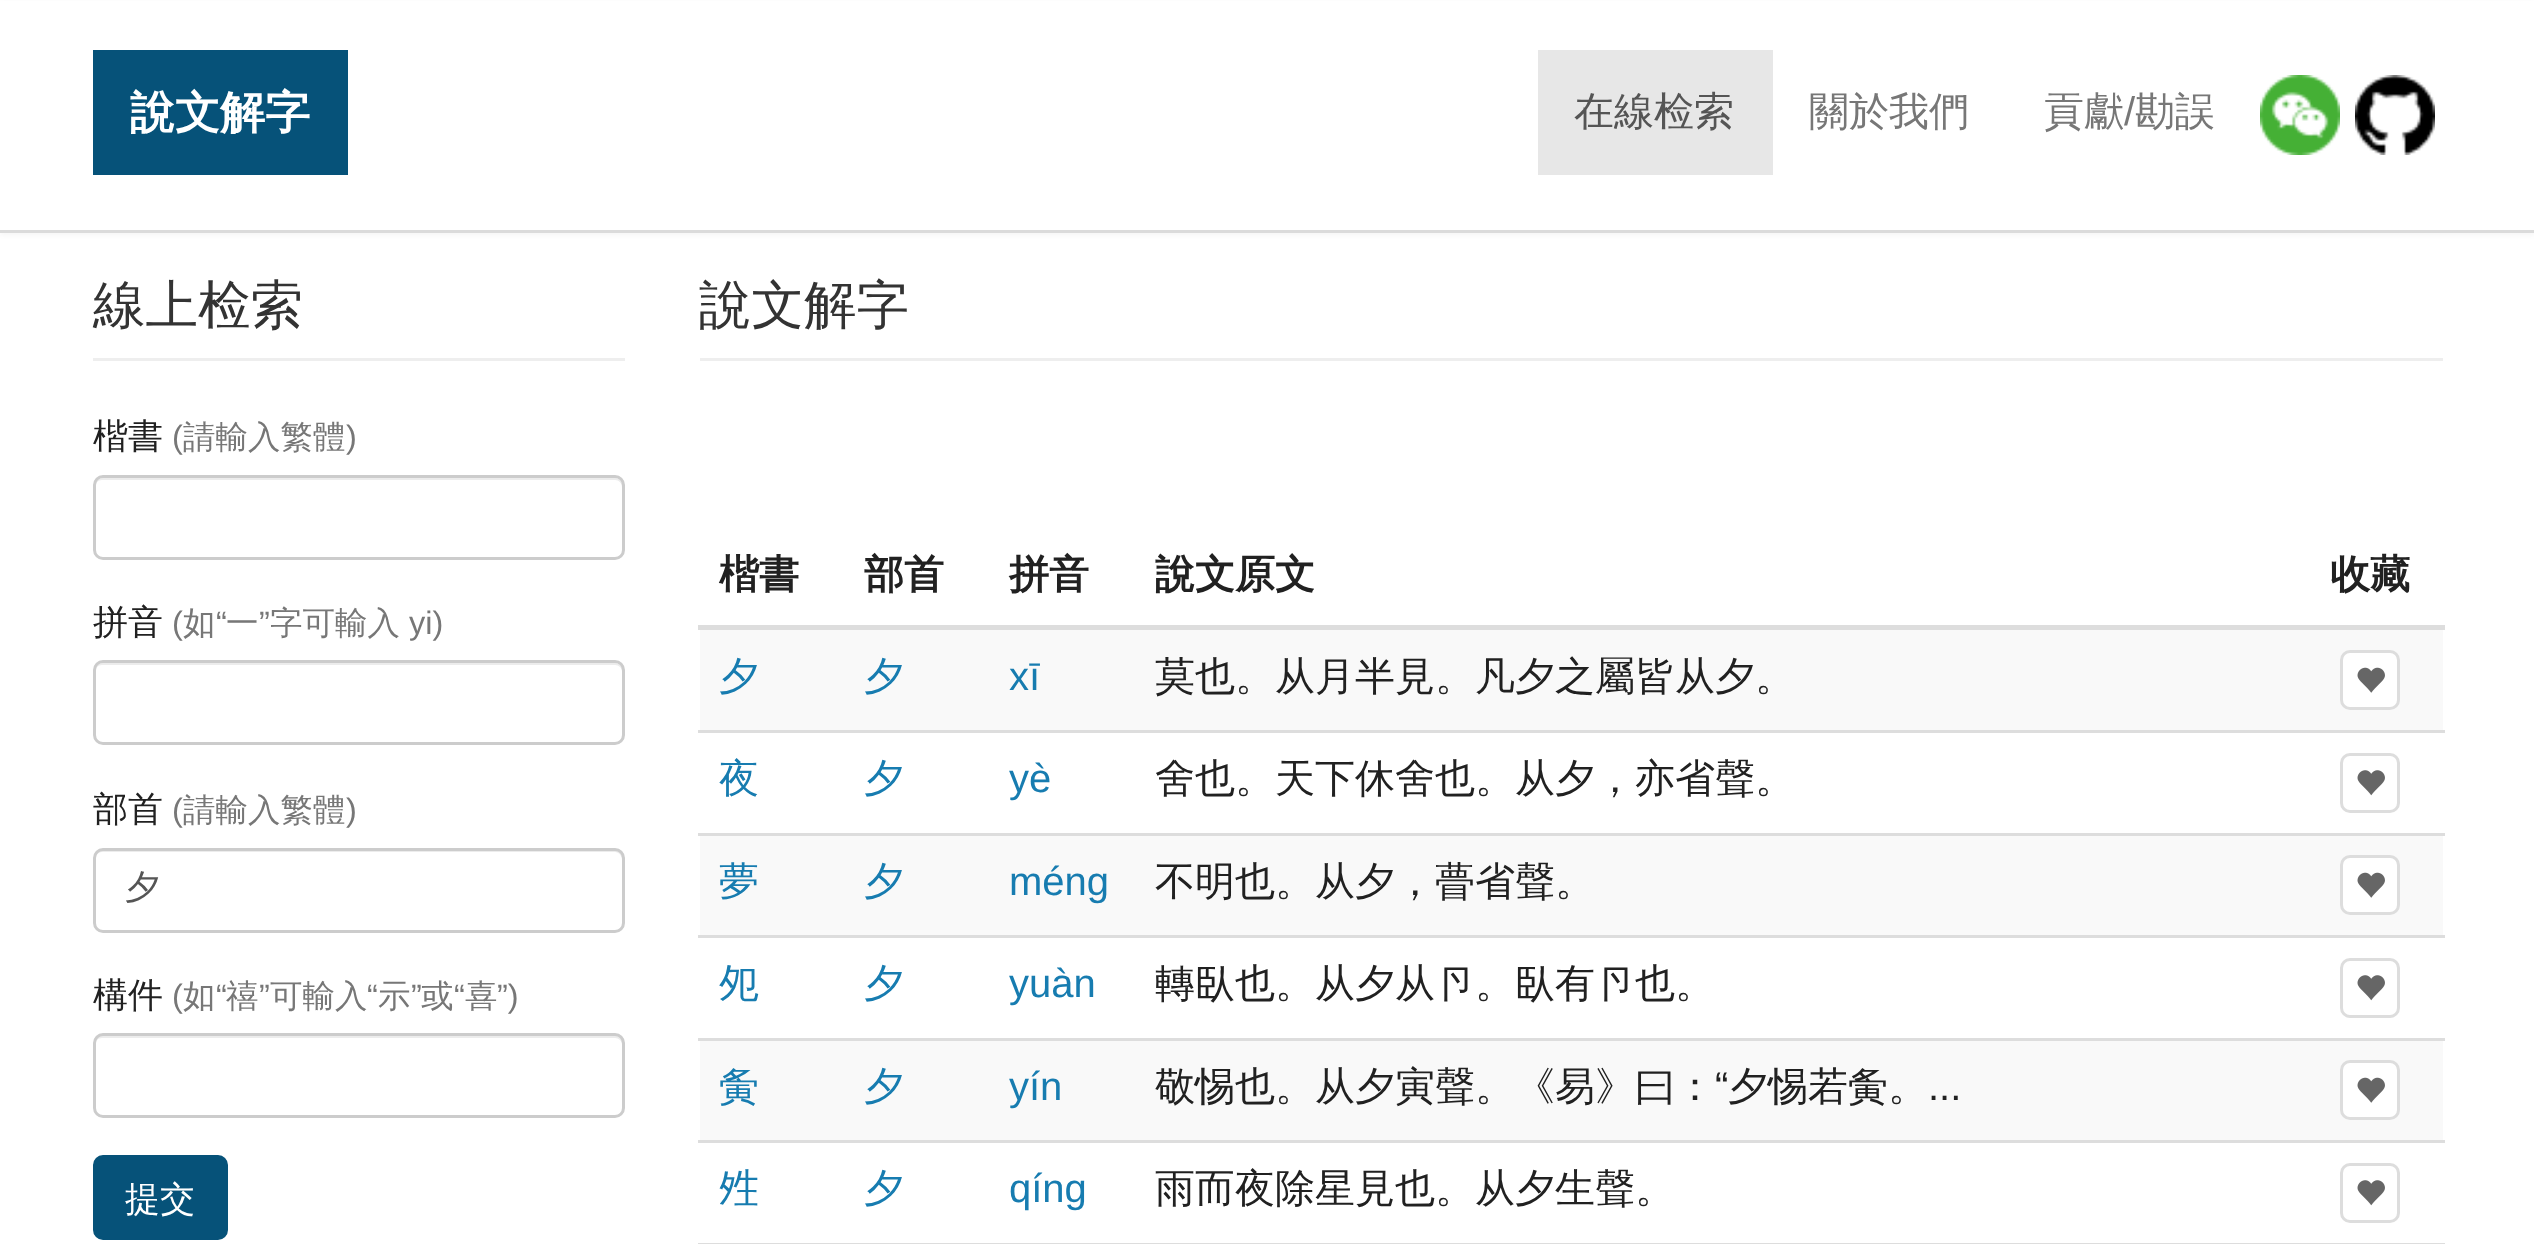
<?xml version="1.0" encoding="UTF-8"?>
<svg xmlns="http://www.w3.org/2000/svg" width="2534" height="1244">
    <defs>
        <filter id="blur1" x="-50%" y="-200%" width="200%" height="500%"><feGaussianBlur stdDeviation="2.5"/></filter>
    </defs>
    <rect width="100%" height="100%" fill="#FFFFFF"/>
    <rect x="0" y="3" width="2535" height="232" fill="#000000" fill-opacity="0.04" filter="url(#blur1)"/>
    <rect x="0" y="1" width="2534" height="229" fill="#FFFFFF"/>
    <rect x="0" y="230" width="2534" height="3" fill="#DBDBDB"/>
    <rect x="93" y="50" width="255" height="125" fill="#065279"/>
    <text x="130" y="128" font-family="WenQuanYi Zen Hei" font-size="45" font-weight="700" fill="#FFFFFF">說文解字</text>
    <rect x="1538" y="50" width="235" height="125" fill="#E7E7E7"/>
    <text x="1574" y="125" font-family="WenQuanYi Zen Hei" font-size="40" font-weight="500" fill="#555555">在線检索</text>
    <text x="1809" y="125" font-family="WenQuanYi Zen Hei" font-size="40" font-weight="500" fill="#777777">關於我們</text>
    <text x="2044" y="125" font-family="WenQuanYi Zen Hei" font-size="40" font-weight="500" fill="#777777">貢獻</text>
    <text x="2124" y="125" font-family="Liberation Sans" font-size="40" fill="#777777">/</text>
    <text x="2135" y="125" font-family="WenQuanYi Zen Hei" font-size="40" font-weight="500" fill="#777777">勘誤</text>
    <image x="2260" y="75" width="80" height="80" href="img_01.png"/>
    <image x="2355" y="75" width="80" height="80" href="img_02.png"/>
    <rect x="93" y="358" width="532" height="3" fill="#EEEEEE"/>
    <text x="93" y="323" font-family="WenQuanYi Zen Hei" font-size="52.5" font-weight="500" fill="#333333">線上检索</text>
    <text x="93" y="448" font-family="WenQuanYi Zen Hei" font-size="35" font-weight="500" fill="#212121">楷書</text>
    <text x="172" y="448" font-family="Liberation Sans" font-size="32.5" fill="#777777">(</text>
    <text x="183" y="448" font-family="WenQuanYi Zen Hei" font-size="32.5" font-weight="500" fill="#777777">請輸入繁體</text>
    <text x="346" y="448" font-family="Liberation Sans" font-size="32.5" fill="#777777">)</text>
    <path d="M 102 480 H 615 C 619 480 622 483 622 488 V 554 C 623 553 623 552 623 550 V 486 C 623 482 619 478 615 478 H 103 C 99 478 95 482 95 486 V 488 C 95 483 98 480 102 480 Z" fill="#ECECEC"/>
    <rect x="94.5" y="476.5" width="529" height="82" rx="8.5" fill="none" stroke="#CCCCCC" stroke-width="3"/>
    <text x="93" y="634" font-family="WenQuanYi Zen Hei" font-size="35" font-weight="500" fill="#212121">拼音</text>
    <text x="172" y="634" font-family="Liberation Sans" font-size="32.5" fill="#777777">(</text>
    <text x="183" y="634" font-family="WenQuanYi Zen Hei" font-size="32.5" font-weight="500" fill="#777777">如</text>
    <text x="216" y="634" font-family="Liberation Sans" font-size="32.5" fill="#777777">“</text>
    <text x="259" y="634" font-family="Liberation Sans" font-size="32.5" fill="#777777">”</text>
    <text x="270" y="634" font-family="WenQuanYi Zen Hei" font-size="32.5" font-weight="500" fill="#777777">字可輸入</text>
    <text x="409" y="634" font-family="Liberation Sans" font-size="32.5" fill="#777777">yi)</text>
    <text x="226" y="634" font-family="WenQuanYi Zen Hei" font-size="32.5" font-weight="500" fill="#777777">一</text>
    <path d="M 102 665 H 615 C 619 665 622 668 622 672 V 739 C 623 738 623 736 623 735 V 671 C 623 667 619 663 615 663 H 103 C 99 663 95 667 95 671 V 672 C 95 668 98 665 102 665 Z" fill="#ECECEC"/>
    <rect x="94.5" y="661.5" width="529" height="82" rx="8.5" fill="none" stroke="#CCCCCC" stroke-width="3"/>
    <text x="93" y="821" font-family="WenQuanYi Zen Hei" font-size="35" font-weight="500" fill="#212121">部首</text>
    <text x="172" y="821" font-family="Liberation Sans" font-size="32.5" fill="#777777">(</text>
    <text x="183" y="821" font-family="WenQuanYi Zen Hei" font-size="32.5" font-weight="500" fill="#777777">請輸入繁體</text>
    <text x="346" y="821" font-family="Liberation Sans" font-size="32.5" fill="#777777">)</text>
    <path d="M 102 852 H 615 C 619 852 622 856 622 860 V 926 C 623 925 623 923 623 922 V 858 C 623 854 619 850 615 850 H 103 C 99 850 95 854 95 858 V 860 C 95 856 98 852 102 852 Z" fill="#ECECEC"/>
    <rect x="94.5" y="849.5" width="529" height="82" rx="8.5" fill="none" stroke="#CCCCCC" stroke-width="3"/>
    <text x="125" y="899" font-family="WenQuanYi Zen Hei" font-size="35" font-weight="500" fill="#555555">夕</text>
    <text x="93" y="1007" font-family="WenQuanYi Zen Hei" font-size="35" font-weight="500" fill="#212121">構件</text>
    <text x="172" y="1007" font-family="Liberation Sans" font-size="32.5" fill="#777777">(</text>
    <text x="183" y="1007" font-family="WenQuanYi Zen Hei" font-size="32.5" font-weight="500" fill="#777777">如</text>
    <text x="216" y="1007" font-family="Liberation Sans" font-size="32.5" fill="#777777">“</text>
    <text x="226" y="1007" font-family="WenQuanYi Zen Hei" font-size="32.5" font-weight="500" fill="#777777">禧</text>
    <text x="259" y="1007" font-family="Liberation Sans" font-size="32.5" fill="#777777">”</text>
    <text x="270" y="1007" font-family="WenQuanYi Zen Hei" font-size="32.5" font-weight="500" fill="#777777">可輸入</text>
    <text x="367" y="1007" font-family="Liberation Sans" font-size="32.5" fill="#777777">“</text>
    <text x="378" y="1007" font-family="WenQuanYi Zen Hei" font-size="32.5" font-weight="500" fill="#777777">示</text>
    <text x="411" y="1007" font-family="Liberation Sans" font-size="32.5" fill="#777777">”</text>
    <text x="421" y="1007" font-family="WenQuanYi Zen Hei" font-size="32.5" font-weight="500" fill="#777777">或</text>
    <text x="454" y="1007" font-family="Liberation Sans" font-size="32.5" fill="#777777">“</text>
    <text x="465" y="1007" font-family="WenQuanYi Zen Hei" font-size="32.5" font-weight="500" fill="#777777">喜</text>
    <text x="497" y="1007" font-family="Liberation Sans" font-size="32.5" fill="#777777">”)</text>
    <path d="M 102 1038 H 615 C 619 1038 622 1041 622 1045 V 1111 C 623 1110 623 1108 623 1107 V 1043 C 623 1039 619 1035 615 1035 H 103 C 99 1035 95 1039 95 1043 V 1045 C 95 1041 98 1038 102 1038 Z" fill="#ECECEC"/>
    <rect x="94.5" y="1034.5" width="529" height="82" rx="8.5" fill="none" stroke="#CCCCCC" stroke-width="3"/>
    <rect x="94.5" y="1156.5" width="132" height="82" rx="8.5" fill="#065279" stroke="#065279" stroke-width="3"/>
    <text x="125" y="1211" font-family="WenQuanYi Zen Hei" font-size="35" font-weight="500" fill="#FFFFFF">提交</text>
    <rect x="700" y="358" width="1743" height="3" fill="#EEEEEE"/>
    <text x="699" y="323" font-family="WenQuanYi Zen Hei" font-size="52.5" font-weight="500" fill="#333333">說文解字</text>
    <text x="719" y="588" font-family="WenQuanYi Zen Hei" font-size="40" font-weight="700" fill="#212121">楷書</text>
    <text x="864" y="588" font-family="WenQuanYi Zen Hei" font-size="40" font-weight="700" fill="#212121">部首</text>
    <text x="1009" y="588" font-family="WenQuanYi Zen Hei" font-size="40" font-weight="700" fill="#212121">拼音</text>
    <text x="1155" y="588" font-family="WenQuanYi Zen Hei" font-size="40" font-weight="700" fill="#212121">說文原文</text>
    <rect x="698" y="625" width="1747" height="5" fill="#DDDDDD"/>
    <text x="2330" y="588" font-family="WenQuanYi Zen Hei" font-size="40" font-weight="700" fill="#212121">收藏</text>
    <rect x="700" y="630" width="1743" height="100" fill="#F9F9F9"/>
    <text x="719" y="690" font-family="WenQuanYi Zen Hei" font-size="40" font-weight="500" fill="#177CB0">夕</text>
    <text x="864" y="690" font-family="WenQuanYi Zen Hei" font-size="40" font-weight="500" fill="#177CB0">夕</text>
    <text x="1009" y="690" font-family="Liberation Sans" font-size="40" fill="#177CB0">xī</text>
    <text x="1155" y="690" font-family="WenQuanYi Zen Hei" font-size="40" font-weight="500" fill="#212121">莫也。从月半見。凡夕之屬皆从夕。</text>
    <rect x="2341.5" y="651.5" width="57" height="57" rx="8.5" fill="#FFFFFF" stroke="#DDDDDD" stroke-width="3"/>
    <image x="2357" y="667" width="28" height="26" href="img_03.png"/>
    <rect x="698" y="730" width="1747" height="3" fill="#DDDDDD"/>
    <rect x="2341.5" y="754.5" width="57" height="57" rx="8.5" fill="none" stroke="#DDDDDD" stroke-width="3"/>
    <image x="2357" y="770" width="28" height="26" href="img_04.png"/>
    <text x="719" y="792" font-family="WenQuanYi Zen Hei" font-size="40" font-weight="500" fill="#177CB0">夜</text>
    <text x="864" y="792" font-family="WenQuanYi Zen Hei" font-size="40" font-weight="500" fill="#177CB0">夕</text>
    <text x="1009" y="792" font-family="Liberation Sans" font-size="40" fill="#177CB0">yè</text>
    <text x="1155" y="792" font-family="WenQuanYi Zen Hei" font-size="40" font-weight="500" fill="#212121">舍也。天下休舍也。从夕，亦省聲。</text>
    <rect x="700" y="836" width="1743" height="99" fill="#F9F9F9"/>
    <rect x="698" y="833" width="1747" height="3" fill="#DDDDDD"/>
    <rect x="2341.5" y="856.5" width="57" height="57" rx="8.5" fill="#FFFFFF" stroke="#DDDDDD" stroke-width="3"/>
    <image x="2357" y="872" width="28" height="26" href="img_03.png"/>
    <text x="719" y="895" font-family="WenQuanYi Zen Hei" font-size="40" font-weight="500" fill="#177CB0">夢</text>
    <text x="864" y="895" font-family="WenQuanYi Zen Hei" font-size="40" font-weight="500" fill="#177CB0">夕</text>
    <text x="1009" y="895" font-family="Liberation Sans" font-size="40" fill="#177CB0">ménɡ</text>
    <text x="1155" y="895" font-family="WenQuanYi Zen Hei" font-size="40" font-weight="500" fill="#212121">不明也。从夕，瞢省聲。</text>
    <rect x="698" y="935" width="1747" height="3" fill="#DDDDDD"/>
    <rect x="2341.5" y="959.5" width="57" height="57" rx="8.5" fill="none" stroke="#DDDDDD" stroke-width="3"/>
    <image x="2357" y="975" width="28" height="26" href="img_04.png"/>
    <text x="719" y="997" font-family="WenQuanYi Zen Hei" font-size="40" font-weight="500" fill="#177CB0">夗</text>
    <text x="864" y="997" font-family="WenQuanYi Zen Hei" font-size="40" font-weight="500" fill="#177CB0">夕</text>
    <text x="1009" y="997" font-family="Liberation Sans" font-size="40" fill="#177CB0">yuàn</text>
    <text x="1155" y="997" font-family="WenQuanYi Zen Hei" font-size="40" font-weight="500" fill="#212121">轉臥也。从夕从卪。臥有卪也。</text>
    <rect x="700" y="1041" width="1743" height="99" fill="#F9F9F9"/>
    <rect x="698" y="1038" width="1747" height="3" fill="#DDDDDD"/>
    <rect x="2341.5" y="1061.5" width="57" height="57" rx="8.5" fill="#FFFFFF" stroke="#DDDDDD" stroke-width="3"/>
    <image x="2357" y="1077" width="28" height="26" href="img_03.png"/>
    <text x="719" y="1100" font-family="WenQuanYi Zen Hei" font-size="40" font-weight="500" fill="#177CB0">夤</text>
    <text x="864" y="1100" font-family="WenQuanYi Zen Hei" font-size="40" font-weight="500" fill="#177CB0">夕</text>
    <text x="1009" y="1100" font-family="Liberation Sans" font-size="40" fill="#177CB0">yín</text>
    <text x="1155" y="1100" font-family="WenQuanYi Zen Hei" font-size="40" font-weight="500" fill="#212121">敬惕也。从夕寅聲。《易》曰：</text>
    <text x="1715" y="1100" font-family="Liberation Sans" font-size="40" fill="#212121">“</text>
    <text x="1728" y="1100" font-family="WenQuanYi Zen Hei" font-size="40" font-weight="500" fill="#212121">夕惕若夤。</text>
    <text x="1928" y="1100" font-family="Liberation Sans" font-size="40" fill="#212121">...</text>
    <rect x="698" y="1140" width="1747" height="3" fill="#DDDDDD"/>
    <rect x="2341.5" y="1164.5" width="57" height="57" rx="8.5" fill="none" stroke="#DDDDDD" stroke-width="3"/>
    <image x="2357" y="1180" width="28" height="26" href="img_04.png"/>
    <text x="719" y="1202" font-family="WenQuanYi Zen Hei" font-size="40" font-weight="500" fill="#177CB0">夝</text>
    <text x="864" y="1202" font-family="WenQuanYi Zen Hei" font-size="40" font-weight="500" fill="#177CB0">夕</text>
    <text x="1009" y="1202" font-family="Liberation Sans" font-size="40" fill="#177CB0">qínɡ</text>
    <text x="1155" y="1202" font-family="WenQuanYi Zen Hei" font-size="40" font-weight="500" fill="#212121">雨而夜除星見也。从夕生聲。</text>
    <rect x="698" y="1243" width="1747" height="1" fill="#DDDDDD"/>
</svg>
